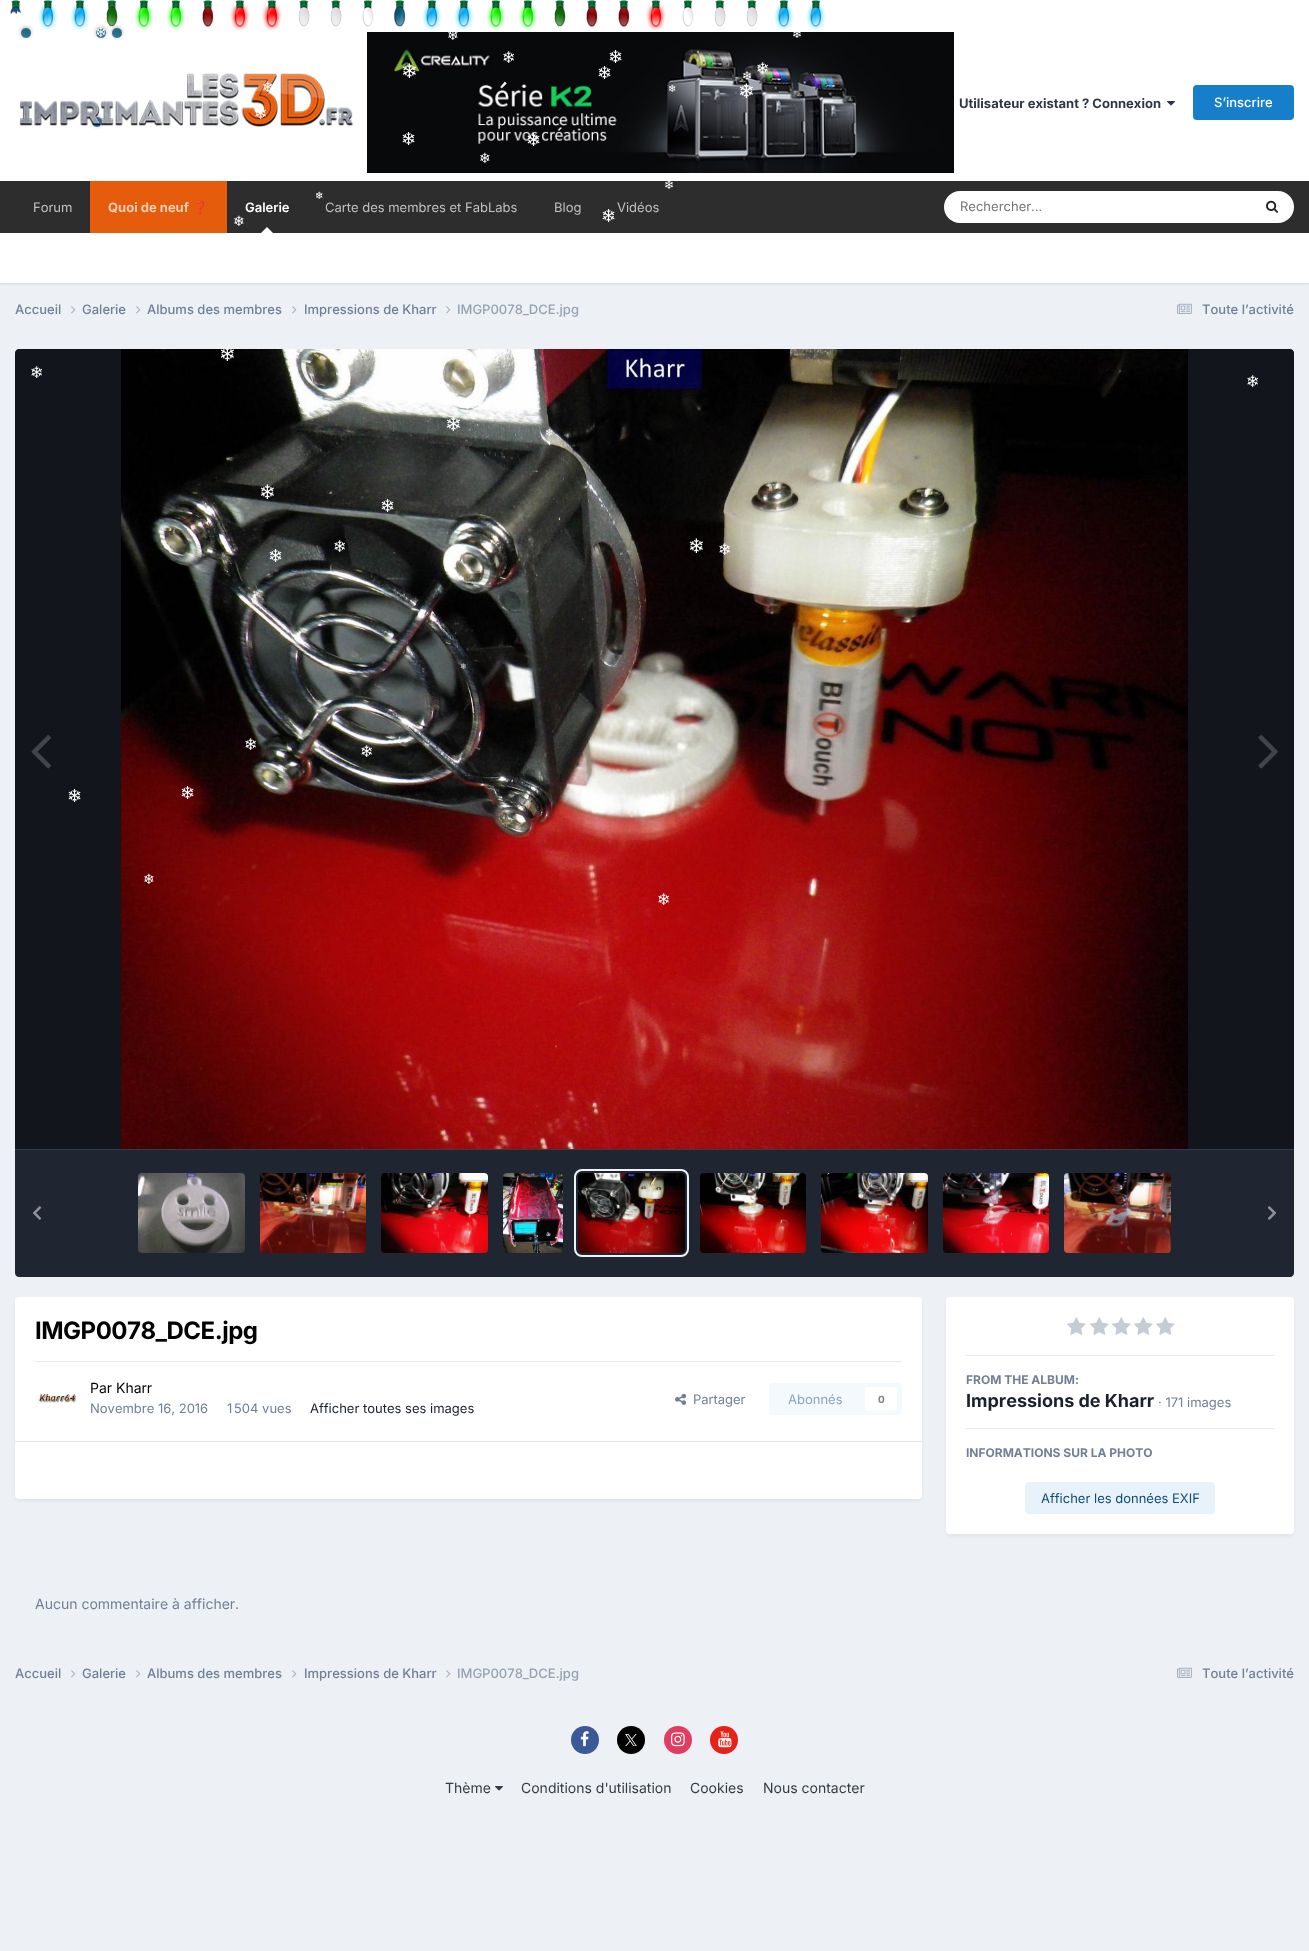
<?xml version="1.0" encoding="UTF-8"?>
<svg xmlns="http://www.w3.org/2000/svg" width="1309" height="1951">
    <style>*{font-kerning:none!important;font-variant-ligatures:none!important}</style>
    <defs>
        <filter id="blur1" x="-50%" y="-200%" width="200%" height="500%"><feGaussianBlur stdDeviation="2"/></filter>
        <filter id="blur2" x="-50%" y="-200%" width="200%" height="500%"><feGaussianBlur stdDeviation="1"/></filter>
    </defs>
    <rect width="100%" height="100%" fill="#EDF0F4"/>
    <rect x="0" y="0" width="1309" height="181" fill="#FFFFFF"/>
    <image x="93" y="24" width="16" height="16" href="img_30.png"/>
    <text x="95" y="37" font-family="DejaVu Sans" font-size="14" fill="#FFFFFF">❄</text>
    <image x="454" y="0" width="20" height="31" href="img_21.png"/>
    <image x="367" y="32" width="587" height="141" href="img_32.png"/>
    <text x="447" y="40" font-family="DejaVu Sans" font-size="14" fill="#FFFFFF">❄</text>
    <image x="774" y="0" width="20" height="31" href="img_21.png"/>
    <text x="792" y="38" font-family="DejaVu Sans" font-size="12" fill="#FFFFFF">❄</text>
    <text x="502" y="63" font-family="DejaVu Sans" font-size="16" fill="#FFFFFF">❄</text>
    <text x="608" y="63" font-family="DejaVu Sans" font-size="18" fill="#FFFFFF">❄</text>
    <text x="401" y="78" font-family="DejaVu Sans" font-size="20" fill="#FFFFFF">❄</text>
    <text x="597" y="79" font-family="DejaVu Sans" font-size="18" fill="#FFFFFF">❄</text>
    <text x="742" y="80" font-family="DejaVu Sans" font-size="12" fill="#FFFFFF">❄</text>
    <text x="756" y="74" font-family="DejaVu Sans" font-size="16" fill="#FFFFFF">❄</text>
    <image x="89" y="113" width="16" height="16" href="img_30.png"/>
    <image x="19" y="73" width="335" height="54" href="img_31.png"/>
    <text x="262" y="92" font-family="DejaVu Sans" font-size="14" fill="#FFFFFF">❄</text>
    <text x="668" y="92" font-family="DejaVu Sans" font-size="10" fill="#FFFFFF">❄</text>
    <text x="738" y="98" font-family="DejaVu Sans" font-size="20" fill="#FFFFFF">❄</text>
    <text x="254" y="119" font-family="DejaVu Sans" font-size="16" fill="#FFFFFF">❄</text>
    <text x="334" y="119" font-family="DejaVu Sans" font-size="10" fill="#FFFFFF">❄</text>
    <text x="401" y="145" font-family="DejaVu Sans" font-size="18" fill="#FFFFFF">❄</text>
    <text x="526" y="146" font-family="DejaVu Sans" font-size="18" fill="#FFFFFF">❄</text>
    <text x="479" y="163" font-family="DejaVu Sans" font-size="14" fill="#FFFFFF">❄</text>
    <rect x="0" y="181" width="1309" height="52" fill="#2D2D2D"/>
    <text x="664" y="189" font-family="DejaVu Sans" font-size="12" fill="#FFFFFF">❄</text>
    <text x="315" y="199" font-family="DejaVu Sans" font-size="10" fill="#FFFFFF">❄</text>
    <text x="233" y="226" font-family="DejaVu Sans" font-size="14" fill="#FFFFFF">❄</text>
    <text x="601" y="222" font-family="DejaVu Sans" font-size="18" fill="#FFFFFF">❄</text>
    <text x="15" y="314" font-family="Inter" font-size="13" font-weight="500" fill="#718096">Accueil</text>
    <image x="71" y="306" width="5" height="8" href="img_01.png"/>
    <text x="82" y="314" font-family="Inter" font-size="13" font-weight="500" fill="#718096">Galerie</text>
    <image x="136" y="306" width="5" height="8" href="img_01.png"/>
    <text x="147" y="314" font-family="Inter" font-size="13" font-weight="500" fill="#718096">Albums des membres</text>
    <image x="292" y="306" width="5" height="8" href="img_01.png"/>
    <text x="304" y="314" font-family="Inter" font-size="13" font-weight="500" fill="#718096">Impressions de Kharr</text>
    <image x="446" y="306" width="5" height="8" href="img_01.png"/>
    <text x="457" y="314" font-family="Inter" font-size="13" font-weight="500" fill="#96A2B2">IMGP0078_DCE.jpg</text>
    <image x="1177" y="303" width="15" height="11" href="img_02.png"/>
    <text x="1202" y="314" font-family="Inter" font-size="13" font-weight="500" fill="#718096">Toute l’activité</text>
    <path d="M 19 349 H 1290 C 1292 349 1294 351 1294 353 V 1149 H 15 V 353 C 15 351 17 349 19 349 Z" fill="#2D3748"/>
    <path d="M 19 349 H 1290 C 1292 349 1294 351 1294 353 V 1149 H 15 V 353 C 15 351 17 349 19 349 Z" fill="#000000" fill-opacity="0.6"/>
    <image x="121" y="349" width="1067" height="800" href="img_03.png"/>
    <image x="31" y="735" width="20" height="34" href="img_04.png"/>
    <image x="1258" y="735" width="20" height="34" href="img_05.png"/>
    <path d="M 15 1149 H 1294 V 1273 C 1294 1275 1292 1277 1290 1277 H 19 C 17 1277 15 1275 15 1273 Z" fill="#2D3748"/>
    <path d="M 15 1149 H 1294 V 1273 C 1294 1275 1292 1277 1290 1277 H 19 C 17 1277 15 1275 15 1273 Z" fill="#000000" fill-opacity="0.3"/>
    <rect x="15" y="1149" width="1279" height="1" fill="#363C47"/>
    <image x="138" y="1173" width="107" height="80" href="img_06.png"/>
    <image x="260" y="1173" width="106" height="80" href="img_07.png"/>
    <image x="381" y="1173" width="107" height="80" href="img_08.png"/>
    <image x="503" y="1173" width="60" height="80" href="img_09.png"/>
    <rect x="575" y="1170" width="113" height="86" rx="7" fill="none" stroke="#EDF2F7" stroke-width="2"/>
    <image x="578" y="1173" width="107" height="80" href="img_10.png"/>
    <image x="700" y="1173" width="106" height="80" href="img_11.png"/>
    <image x="821" y="1173" width="107" height="80" href="img_12.png"/>
    <image x="943" y="1173" width="106" height="80" href="img_13.png"/>
    <image x="1064" y="1173" width="107" height="80" href="img_14.png"/>
    <image x="33" y="1206" width="9" height="14" href="img_15.png"/>
    <image x="1267" y="1206" width="9" height="14" href="img_16.png"/>
    <rect x="16" y="1300" width="905" height="200" rx="3" fill="#2D3748" fill-opacity="0.1" filter="url(#blur1)"/>
    <rect x="15" y="1297" width="907" height="202" rx="4" fill="#FFFFFF"/>
    <text x="35" y="1339" font-family="Inter" font-size="24" font-weight="700" letter-spacing="-0.5" fill="#000000">IMGP0078_DCE.jpg</text>
    <rect x="35" y="1361" width="867" height="1" fill="#EBEBEB"/>
    <image x="35" y="1391" width="42" height="14" href="img_17.png"/>
    <text x="90" y="1393" font-family="Inter" font-size="14" fill="#000000">Par Kharr</text>
    <text x="90" y="1413" font-family="Inter" font-size="13" fill="#718096">Novembre 16, 2016</text>
    <text x="227" y="1413" font-family="Inter" font-size="13" fill="#718096">1 504 vues</text>
    <text x="310" y="1413" font-family="Inter" font-size="13" fill="#1A202C">Afficher toutes ses images</text>
    <image x="675" y="1393" width="12" height="12" href="img_18.png"/>
    <text x="693" y="1404" font-family="Inter" font-size="13" fill="#718096">Partager</text>
    <rect x="769" y="1383" width="133" height="32" rx="4" fill="#F4F9FD"/>
    <text x="788" y="1404" font-family="Inter" font-size="13" fill="#87A6BC">Abonnés</text>
    <rect x="865" y="1387" width="32" height="24" rx="4" fill="#FFFFFF"/>
    <text x="878" y="1403" font-family="Inter" font-size="10" font-weight="700" fill="#808080">0</text>
    <rect x="15" y="1441" width="907" height="1" fill="#E6E6E6"/>
    <rect x="947" y="1300" width="346" height="235" rx="3" fill="#2D3748" fill-opacity="0.1" filter="url(#blur1)"/>
    <rect x="946" y="1297" width="348" height="237" rx="4" fill="#FFFFFF"/>
    <image x="1067" y="1317" width="19" height="18" href="img_19.png"/>
    <image x="1090" y="1317" width="19" height="18" href="img_19.png"/>
    <image x="1112" y="1317" width="19" height="18" href="img_19.png"/>
    <image x="1134" y="1317" width="19" height="18" href="img_19.png"/>
    <image x="1156" y="1317" width="19" height="18" href="img_19.png"/>
    <rect x="966" y="1355" width="308" height="1" fill="#EBEBEB"/>
    <text x="966" y="1384" font-family="Inter" font-size="12" font-weight="700" fill="#718096">FROM THE ALBUM:</text>
    <text x="966" y="1407" font-family="Inter" font-size="18" font-weight="700" fill="#1A202C">Impressions de Kharr</text>
    <text x="1158" y="1407" font-family="Inter" font-size="13" fill="#718096">· 171 images</text>
    <rect x="966" y="1428" width="308" height="1" fill="#EBEBEB"/>
    <text x="966" y="1457" font-family="Inter" font-size="12" font-weight="700" fill="#718096">INFORMATIONS SUR LA PHOTO</text>
    <rect x="1025" y="1482" width="190" height="32" rx="4" fill="#E8F2FA"/>
    <text x="1041" y="1503" font-family="Inter" font-size="13" fill="#0E4C79">Afficher les données EXIF</text>
    <text x="35" y="1609" font-family="Inter" font-size="14" fill="#718096">Aucun commentaire à afficher.</text>
    <text x="15" y="1678" font-family="Inter" font-size="13" font-weight="500" fill="#718096">Accueil</text>
    <image x="71" y="1670" width="5" height="8" href="img_01.png"/>
    <text x="82" y="1678" font-family="Inter" font-size="13" font-weight="500" fill="#718096">Galerie</text>
    <image x="136" y="1670" width="5" height="8" href="img_01.png"/>
    <text x="147" y="1678" font-family="Inter" font-size="13" font-weight="500" fill="#718096">Albums des membres</text>
    <image x="292" y="1670" width="5" height="8" href="img_01.png"/>
    <text x="304" y="1678" font-family="Inter" font-size="13" font-weight="500" fill="#718096">Impressions de Kharr</text>
    <image x="446" y="1670" width="5" height="8" href="img_01.png"/>
    <text x="457" y="1678" font-family="Inter" font-size="13" font-weight="500" fill="#96A2B2">IMGP0078_DCE.jpg</text>
    <image x="1177" y="1667" width="15" height="11" href="img_02.png"/>
    <text x="1202" y="1678" font-family="Inter" font-size="13" font-weight="500" fill="#718096">Toute l’activité</text>
    <text x="219" y="361" font-family="DejaVu Sans" font-size="20" fill="#FFFFFF">❄</text>
    <text x="30" y="378" font-family="DejaVu Sans" font-size="16" fill="#FFFFFF">❄</text>
    <text x="1246" y="387" font-family="DejaVu Sans" font-size="16" fill="#FFFFFF">❄</text>
    <text x="445" y="431" font-family="DejaVu Sans" font-size="20" fill="#FFFFFF">❄</text>
    <text x="545" y="436" font-family="DejaVu Sans" font-size="10" fill="#FFFFFF">❄</text>
    <text x="259" y="499" font-family="DejaVu Sans" font-size="20" fill="#FFFFFF">❄</text>
    <text x="380" y="512" font-family="DejaVu Sans" font-size="18" fill="#FFFFFF">❄</text>
    <text x="268" y="562" font-family="DejaVu Sans" font-size="18" fill="#FFFFFF">❄</text>
    <text x="333" y="552" font-family="DejaVu Sans" font-size="16" fill="#FFFFFF">❄</text>
    <text x="688" y="553" font-family="DejaVu Sans" font-size="20" fill="#FFFFFF">❄</text>
    <text x="718" y="555" font-family="DejaVu Sans" font-size="16" fill="#FFFFFF">❄</text>
    <text x="460" y="669" font-family="DejaVu Sans" font-size="8" fill="#D7D7D8">❄</text>
    <text x="244" y="750" font-family="DejaVu Sans" font-size="16" fill="#FFFFFF">❄</text>
    <text x="360" y="757" font-family="DejaVu Sans" font-size="16" fill="#FFFFFF">❄</text>
    <text x="67" y="802" font-family="DejaVu Sans" font-size="18" fill="#FFFFFF">❄</text>
    <text x="180" y="799" font-family="DejaVu Sans" font-size="18" fill="#FFFFFF">❄</text>
    <text x="143" y="884" font-family="DejaVu Sans" font-size="14" fill="#FFFFFF">❄</text>
    <text x="657" y="905" font-family="DejaVu Sans" font-size="16" fill="#FFFFFF">❄</text>
    <image x="10" y="0" width="11" height="14" href="img_20.png"/>
    <image x="38" y="0" width="20" height="31" href="img_21.png"/>
    <image x="70" y="0" width="20" height="31" href="img_21.png"/>
    <image x="109" y="24" width="16" height="16" href="img_30.png"/>
    <image x="106" y="0" width="12" height="27" href="img_22.png"/>
    <image x="134" y="0" width="20" height="31" href="img_23.png"/>
    <image x="166" y="0" width="20" height="31" href="img_23.png"/>
    <image x="202" y="0" width="12" height="27" href="img_24.png"/>
    <image x="230" y="0" width="20" height="31" href="img_25.png"/>
    <image x="262" y="0" width="20" height="31" href="img_25.png"/>
    <image x="298" y="0" width="12" height="27" href="img_26.png"/>
    <image x="330" y="0" width="12" height="27" href="img_26.png"/>
    <image x="362" y="0" width="12" height="27" href="img_27.png"/>
    <image x="393" y="0" width="13" height="27" href="img_28.png"/>
    <image x="422" y="0" width="20" height="31" href="img_21.png"/>
    <image x="486" y="0" width="20" height="31" href="img_23.png"/>
    <image x="518" y="0" width="20" height="31" href="img_23.png"/>
    <image x="554" y="0" width="12" height="27" href="img_29.png"/>
    <image x="586" y="0" width="12" height="27" href="img_24.png"/>
    <image x="618" y="0" width="12" height="27" href="img_24.png"/>
    <image x="646" y="0" width="20" height="31" href="img_25.png"/>
    <image x="682" y="0" width="12" height="27" href="img_27.png"/>
    <image x="714" y="0" width="12" height="27" href="img_26.png"/>
    <image x="746" y="0" width="12" height="27" href="img_26.png"/>
    <image x="806" y="0" width="20" height="31" href="img_21.png"/>
    <image x="18" y="24" width="16" height="16" href="img_30.png"/>
    <text x="959" y="108" font-family="Inter" font-size="13" font-weight="700" fill="#2D3748">Utilisateur existant ? Connexion</text>
    <image x="1167" y="101" width="8" height="5" href="img_33.png"/>
    <rect x="1193" y="85" width="101" height="35" rx="4" fill="#177EC9"/>
    <text x="1214" y="107" font-family="Inter" font-size="13" font-weight="500" fill="#FFFFFF">S’inscrire</text>
    <text x="33" y="212" font-family="Inter" font-size="13" fill="#C0C0C0">Forum</text>
    <rect x="0" y="234" width="1309" height="50" fill="#000000" fill-opacity="0.1" filter="url(#blur2)"/>
    <rect x="90" y="181" width="137" height="52" fill="#E55C0C"/>
    <text x="108" y="212" font-family="Inter" font-size="13" font-weight="700" fill="#F7CEB6">Quoi de neuf</text>
    <text x="192" y="212" font-family="Noto Color Emoji" font-size="13" font-weight="700" fill="#F7CEB6">❓</text>
    <text x="245" y="212" font-family="Inter" font-size="13" font-weight="600" fill="#FFFFFF">Galerie</text>
    <path d="M 273 233 H 261 L 267 227 Z" fill="#FFFFFF"/>
    <text x="325" y="212" font-family="Inter" font-size="13" fill="#C0C0C0">Carte des membres et FabLabs</text>
    <text x="554" y="212" font-family="Inter" font-size="13" fill="#C0C0C0">Blog</text>
    <text x="617" y="212" font-family="Inter" font-size="13" fill="#C0C0C0">Vidéos</text>
    <rect x="944" y="191" width="350" height="32" rx="16" fill="#FFFFFF"/>
    <text x="960" y="211" font-family="Inter" font-size="13" fill="#757575">Rechercher…</text>
    <image x="1266" y="200" width="12" height="13" href="img_34.png"/>
    <rect x="0" y="233" width="1309" height="50" fill="#FFFFFF"/>
    <circle cx="585" cy="1740" r="14" fill="#3B5998"/>
    <image x="580" y="1731" width="9" height="16" href="img_35.png"/>
    <circle cx="631" cy="1740" r="14" fill="#000000"/>
    <image x="625" y="1734" width="12" height="12" href="img_36.png"/>
    <circle cx="678" cy="1740" r="14" fill="#E13D62"/>
    <image x="671" y="1732" width="14" height="15" href="img_37.png"/>
    <circle cx="724" cy="1740" r="14" fill="#E62117"/>
    <image x="718" y="1731" width="14" height="17" href="img_38.png"/>
    <text x="445" y="1793" font-family="Inter" font-size="14" fill="#353C41">Thème</text>
    <image x="495" y="1786" width="8" height="5" href="img_39.png"/>
    <text x="521" y="1793" font-family="Inter" font-size="14" fill="#353C41">Conditions d'utilisation</text>
    <text x="690" y="1793" font-family="Inter" font-size="14" fill="#353C41">Cookies</text>
    <text x="763" y="1793" font-family="Inter" font-size="14" fill="#353C41">Nous contacter</text>
</svg>
